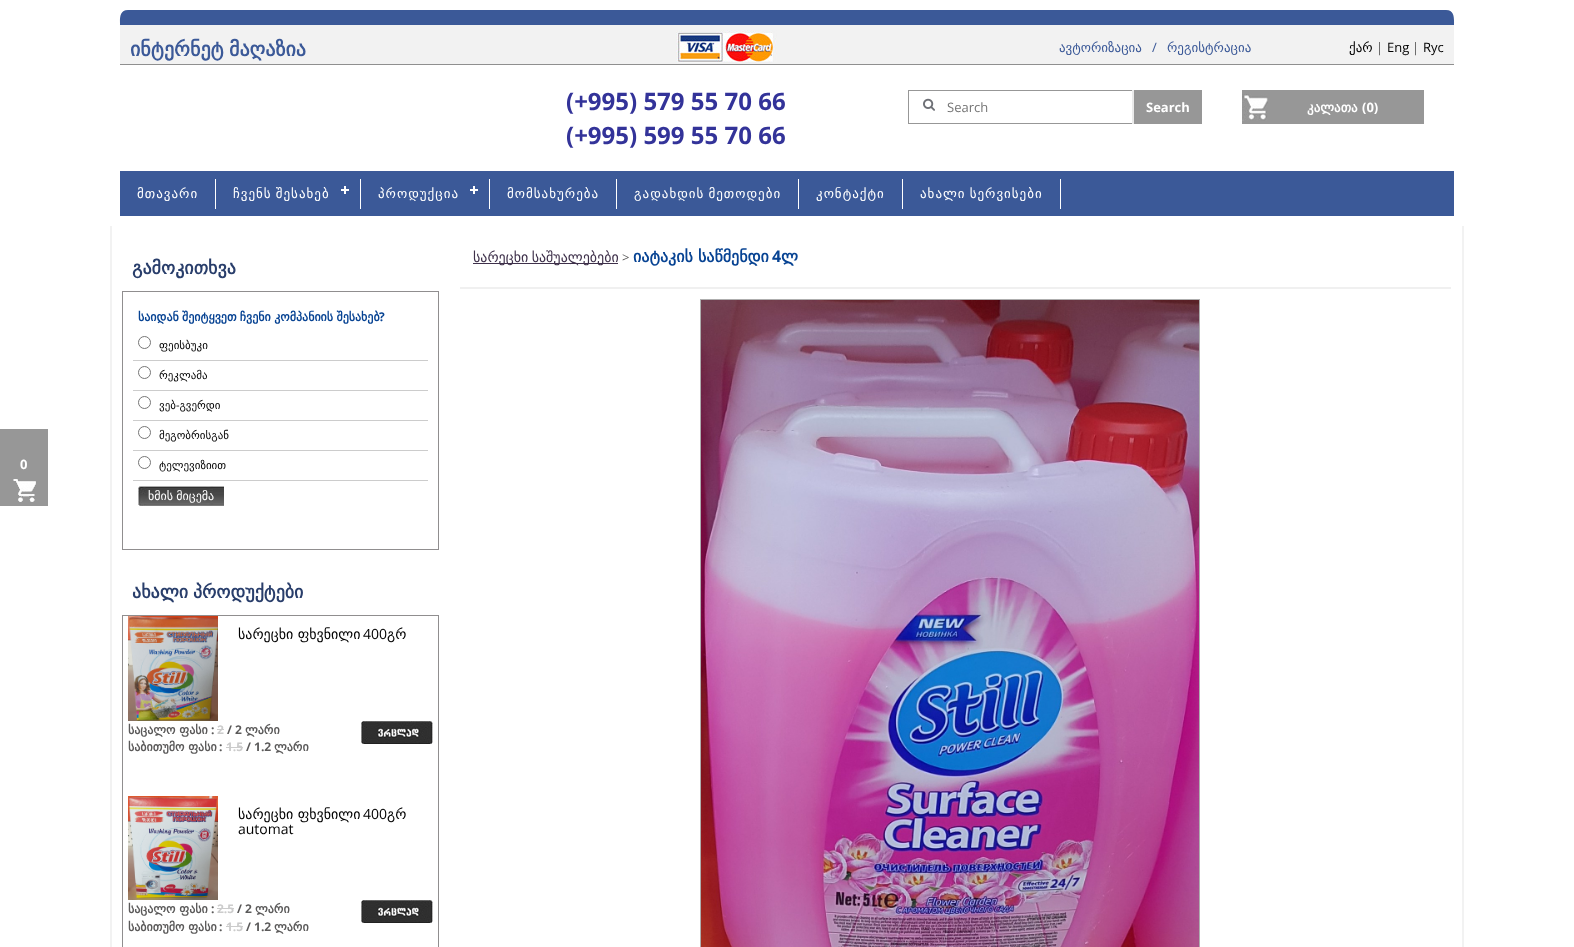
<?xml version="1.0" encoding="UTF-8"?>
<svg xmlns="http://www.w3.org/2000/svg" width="1574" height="947">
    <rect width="100%" height="100%" fill="#FFFFFF"/>
    <path d="M 128 10 H 1446 C 1450.5 10 1454 13.5 1454 18 V 65 H 120 V 18 C 120 13.5 123.5 10 128 10 Z" fill="#F2F2F2"/>
    <path d="M 128 10 C 119 10 120 19 120 25 H 1454 C 1454 19 1455 10 1446 10 Z" fill="#3B5998"/>
    <rect x="120" y="64" width="1334" height="1" fill="#8F8F8F"/>
    <text x="130" y="56" word-spacing="-1" font-family="DejaVu Sans" font-size="20" font-weight="700" fill="#3B5998">ინტერნეტ მაღაზია</text>
    <image x="676" y="30" width="101" height="33" href="img_01.png"/>
    <text x="1059" y="52" font-family="DejaVu Sans" font-size="13" fill="#3B5998">ავტორიზაცია</text>
    <text x="1152" y="52" font-family="Open Sans" font-size="13" fill="#3B5998">/</text>
    <text x="1167" y="52" font-family="DejaVu Sans" font-size="13" fill="#3B5998">რეგისტრაცია</text>
    <text x="1349" y="52" font-family="DejaVu Sans" font-size="13" fill="#000000">ქარ</text>
    <text x="1376" y="52" font-family="Open Sans" font-size="13" fill="#5B5A5A">|</text>
    <text x="1387" y="52" font-family="Open Sans" font-size="13" fill="#000000">Eng</text>
    <text x="1412" y="52" font-family="Open Sans" font-size="13" fill="#5B5A5A">|</text>
    <text x="1423" y="52" font-family="Open Sans" font-size="13" fill="#000000">Rус</text>
    <text font-family="Open Sans" font-size="24" font-weight="700" fill="#333399">
        <tspan x="566" y="110">(+995) 579 55 70 66</tspan>
        <tspan x="566" y="144">(+995) 599 55 70 66</tspan>
    </text>
    <rect x="1242" y="90" width="182" height="34" fill="#979797"/>
    <image x="1242" y="94" width="26" height="27" href="img_02.png"/>
    <text x="1307" y="112" font-family="DejaVu Sans" font-size="13" font-weight="700" fill="#FFFFFF">კალათა</text>
    <text x="1362" y="112" font-family="Open Sans" font-size="13" font-weight="700" fill="#FFFFFF">(0)</text>
    <rect x="0" y="429" width="48" height="77" fill="#979797"/>
    <image x="13" y="479" width="23" height="23" href="img_03.png"/>
    <text x="20" y="469" font-family="Open Sans" font-size="13" font-weight="700" fill="#FFFFFF">0</text>
    <image x="923" y="98" width="12" height="13" href="img_04.png"/>
    <rect x="908.5" y="90.5" width="293" height="33" fill="none" stroke="#979797"/>
    <text x="947" y="112" font-family="Open Sans" font-size="13" fill="#757575">Search</text>
    <rect x="1134" y="91" width="67" height="32" fill="#979797"/>
    <rect x="1132" y="90" width="2" height="34" fill="#EAEAEA"/>
    <text x="1146" y="112" font-family="Open Sans" font-size="13" font-weight="700" fill="#FFFFFF">Search</text>
    <rect x="120" y="171" width="1334" height="45" fill="#3B5998"/>
    <rect x="215" y="179" width="1" height="30" fill="#FFFFFF"/>
    <text x="137" y="198" font-family="DejaVu Sans" font-size="13" letter-spacing="1" fill="#FFFFFF">მთავარი</text>
    <rect x="360" y="179" width="1" height="30" fill="#FFFFFF"/>
    <text x="233" y="198" word-spacing="-1" font-family="DejaVu Sans" font-size="13" letter-spacing="1" fill="#FFFFFF">ჩვენს შესახებ</text>
    <rect x="344" y="186" width="2" height="8" fill="#FFFFFF"/>
    <rect x="341" y="189" width="8" height="2" fill="#FFFFFF"/>
    <rect x="489" y="179" width="1" height="30" fill="#FFFFFF"/>
    <text x="378" y="198" font-family="DejaVu Sans" font-size="13" letter-spacing="1" fill="#FFFFFF">პროდუქცია</text>
    <rect x="473" y="186" width="2" height="8" fill="#FFFFFF"/>
    <rect x="470" y="189" width="8" height="2" fill="#FFFFFF"/>
    <rect x="616" y="179" width="1" height="30" fill="#FFFFFF"/>
    <text x="507" y="198" font-family="DejaVu Sans" font-size="13" letter-spacing="1" fill="#FFFFFF">მომსახურება</text>
    <rect x="798" y="179" width="1" height="30" fill="#FFFFFF"/>
    <text x="634" y="198" word-spacing="-1" font-family="DejaVu Sans" font-size="13" letter-spacing="1" fill="#FFFFFF">გადახდის მეთოდები</text>
    <rect x="902" y="179" width="1" height="30" fill="#FFFFFF"/>
    <text x="816" y="198" font-family="DejaVu Sans" font-size="13" letter-spacing="1" fill="#FFFFFF">კონტაქტი</text>
    <rect x="1060" y="179" width="1" height="30" fill="#FFFFFF"/>
    <text x="920" y="198" word-spacing="-1" font-family="DejaVu Sans" font-size="13" letter-spacing="1" fill="#FFFFFF">ახალი სერვისები</text>
    <rect x="110" y="226" width="2" height="721" fill="#F2F2F2"/>
    <text x="132" y="274" font-family="DejaVu Sans" font-size="18" font-weight="700" fill="#293E6B">გამოკითხვა</text>
    <rect x="122.5" y="291.5" width="316" height="258" fill="none" stroke="#908E8F"/>
    <text x="138" y="321" word-spacing="-0.5" font-family="DejaVu Sans" font-size="12" font-weight="700" fill="#074393">საიდან შეიტყვეთ ჩვენი კომპანიის შესახებ</text>
    <text x="379" y="321" font-family="Open Sans" font-size="12" font-weight="700" fill="#074393">?</text>
    <circle cx="144.5" cy="342.5" r="6" fill="none" stroke="#767676"/>
    <rect x="133" y="360" width="295" height="1" fill="#CCCCCC"/>
    <text x="159" y="349" font-family="DejaVu Sans" font-size="11" fill="#000000">ფეისბუკი</text>
    <circle cx="144.5" cy="372.5" r="6" fill="none" stroke="#767676"/>
    <rect x="133" y="390" width="295" height="1" fill="#CCCCCC"/>
    <text x="159" y="379" font-family="DejaVu Sans" font-size="11" fill="#000000">რეკლამა</text>
    <circle cx="144.5" cy="402.5" r="6" fill="none" stroke="#767676"/>
    <rect x="133" y="420" width="295" height="1" fill="#CCCCCC"/>
    <text x="159" y="409" font-family="DejaVu Sans" font-size="11" fill="#000000">ვებ გვერდი</text>
    <text x="176" y="409" font-family="Open Sans" font-size="11" fill="#000000">-</text>
    <circle cx="144.5" cy="432.5" r="6" fill="none" stroke="#767676"/>
    <rect x="133" y="450" width="295" height="1" fill="#CCCCCC"/>
    <text x="159" y="439" font-family="DejaVu Sans" font-size="11" fill="#000000">მეგობრისგან</text>
    <circle cx="144.5" cy="462.5" r="6" fill="none" stroke="#767676"/>
    <rect x="133" y="480" width="295" height="1" fill="#CCCCCC"/>
    <text x="159" y="469" font-family="DejaVu Sans" font-size="11" fill="#000000">ტელევიზიით</text>
    <image x="138" y="486" width="86" height="20" href="img_05.png"/>
    <text x="148" y="500" word-spacing="-0.5" font-family="DejaVu Sans" font-size="12" fill="#FFFFFF">ხმის მიცემა</text>
    <text x="132" y="598" word-spacing="-1" font-family="DejaVu Sans" font-size="18" font-weight="700" fill="#293E6B">ახალი პროდუქტები</text>
    <rect x="122.5" y="615.5" width="316" height="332" fill="none" stroke="#908E8F"/>
    <image x="128" y="616" width="90" height="105" href="img_06.png"/>
    <text x="238" y="639" font-family="DejaVu Sans" font-size="14" fill="#000000">სარეცხი ფხვნილი</text>
    <text x="363" y="639" font-family="Open Sans" font-size="14" fill="#000000">400</text>
    <text x="387" y="639" font-family="DejaVu Sans" font-size="14" fill="#000000">გრ</text>
    <text x="128" y="734" font-family="DejaVu Sans" font-size="12" font-weight="700" fill="#5B5A5A">საცალო ფასი</text>
    <text x="211" y="734" font-family="Open Sans" font-size="12" font-weight="700" fill="#5B5A5A">:</text>
    <text x="217" y="734" font-family="Open Sans" font-size="12" font-weight="700" fill="#CCCCCC">2</text>
    <rect x="217" y="729" width="7" height="1" fill="#CCCCCC"/>
    <text x="227" y="734" font-family="Open Sans" font-size="12" font-weight="700" fill="#5B5A5A">/ 2</text>
    <text x="245" y="734" font-family="DejaVu Sans" font-size="12" font-weight="700" fill="#5B5A5A">ლარი</text>
    <text x="128" y="751" font-family="DejaVu Sans" font-size="12" font-weight="700" fill="#5B5A5A">საბითუმო ფასი</text>
    <text x="219" y="751" font-family="Open Sans" font-size="12" font-weight="700" fill="#5B5A5A">:</text>
    <text x="226" y="751" font-family="Open Sans" font-size="12" font-weight="700" fill="#CCCCCC">1.5</text>
    <rect x="226" y="747" width="17" height="1" fill="#CCCCCC"/>
    <text x="246" y="751" font-family="Open Sans" font-size="12" font-weight="700" fill="#5B5A5A">/ 1.2</text>
    <text x="274" y="751" font-family="DejaVu Sans" font-size="12" font-weight="700" fill="#5B5A5A">ლარი</text>
    <image x="361" y="721" width="72" height="23" href="img_07.png"/>
    <image x="128" y="796" width="90" height="104" href="img_08.png"/>
    <text x="238" y="819" font-family="DejaVu Sans" font-size="14" fill="#000000">სარეცხი ფხვნილი</text>
    <text x="363" y="819" font-family="Open Sans" font-size="14" fill="#000000">400</text>
    <text x="387" y="819" font-family="DejaVu Sans" font-size="14" fill="#000000">გრ</text>
    <text x="238" y="834" font-family="Open Sans" font-size="14" fill="#000000">automat</text>
    <text x="128" y="913" font-family="DejaVu Sans" font-size="12" font-weight="700" fill="#5B5A5A">საცალო ფასი</text>
    <text x="211" y="913" font-family="Open Sans" font-size="12" font-weight="700" fill="#5B5A5A">:</text>
    <text x="217" y="913" font-family="Open Sans" font-size="12" font-weight="700" fill="#CCCCCC">2.5</text>
    <rect x="217" y="908" width="17" height="1" fill="#CCCCCC"/>
    <text x="237" y="913" font-family="Open Sans" font-size="12" font-weight="700" fill="#5B5A5A">/ 2</text>
    <text x="255" y="913" font-family="DejaVu Sans" font-size="12" font-weight="700" fill="#5B5A5A">ლარი</text>
    <text x="128" y="931" font-family="DejaVu Sans" font-size="12" font-weight="700" fill="#5B5A5A">საბითუმო ფასი</text>
    <text x="219" y="931" font-family="Open Sans" font-size="12" font-weight="700" fill="#5B5A5A">:</text>
    <text x="226" y="931" font-family="Open Sans" font-size="12" font-weight="700" fill="#CCCCCC">1.5</text>
    <rect x="226" y="926" width="17" height="1" fill="#CCCCCC"/>
    <text x="246" y="931" font-family="Open Sans" font-size="12" font-weight="700" fill="#5B5A5A">/ 1.2</text>
    <text x="274" y="931" font-family="DejaVu Sans" font-size="12" font-weight="700" fill="#5B5A5A">ლარი</text>
    <image x="361" y="900" width="72" height="23" href="img_07.png"/>
    <rect x="1462" y="226" width="2" height="721" fill="#F2F2F2"/>
    <rect x="460" y="287" width="991" height="2" fill="#F0F0F0"/>
    <rect x="473" y="263" width="145" height="1" fill="#3F314B"/>
    <text x="473" y="262" word-spacing="-1" font-family="DejaVu Sans" font-size="14" fill="#3F314B">სარეცხი საშუალებები</text>
    <text x="622" y="262" font-family="Open Sans" font-size="13" fill="#5B5A5A">&gt;</text>
    <text x="633" y="262" font-family="DejaVu Sans" font-size="16" font-weight="700" fill="#074393">იატაკის საწმენდი</text>
    <text x="772" y="262" font-family="Open Sans" font-size="16" font-weight="700" fill="#074393">4</text>
    <text x="781" y="262" font-family="DejaVu Sans" font-size="16" font-weight="700" fill="#074393">ლ</text>
    <rect x="700.5" y="299.5" width="499" height="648" fill="none" stroke="#AEAEAE"/>
    <image x="701" y="300" width="498" height="647" href="img_09.png"/>
</svg>
